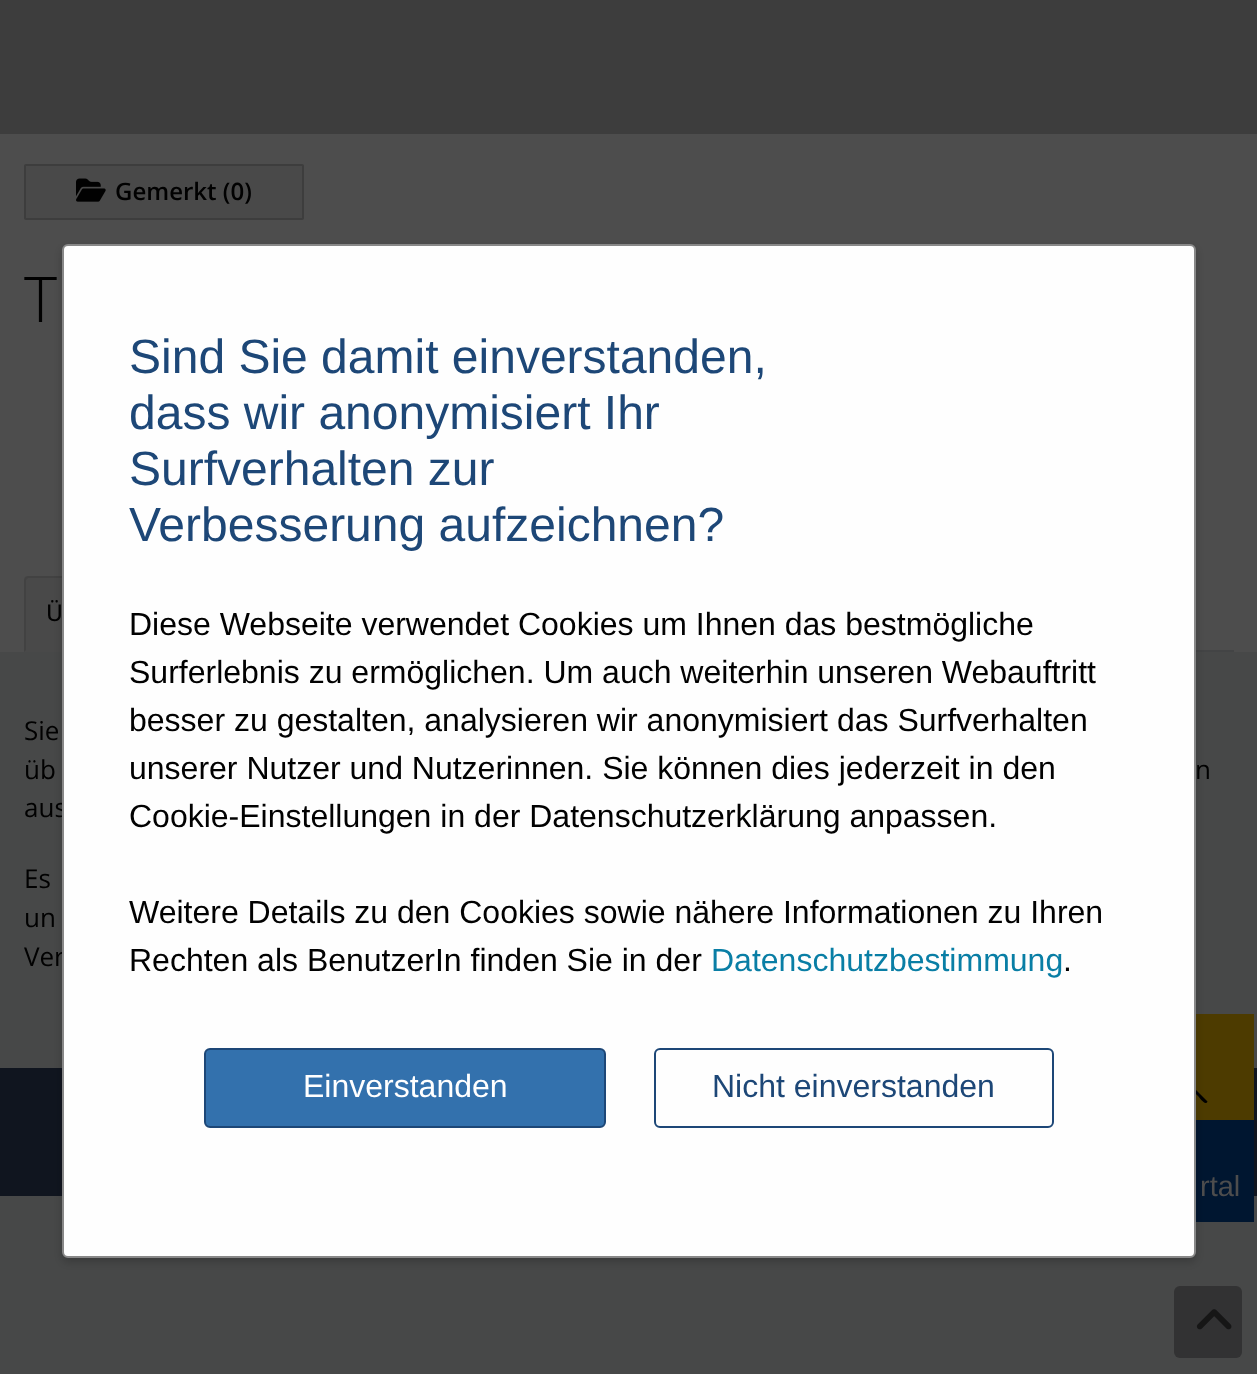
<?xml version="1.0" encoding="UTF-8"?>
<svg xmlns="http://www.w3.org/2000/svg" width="1257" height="1374">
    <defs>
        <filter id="blur1" x="-50%" y="-200%" width="200%" height="500%"><feGaussianBlur stdDeviation="5"/></filter>
    </defs>
    <rect width="100%" height="100%" fill="#474848"/>
    <rect x="0" y="0" width="1257" height="134" fill="#3D3D3D"/>
    <rect x="0" y="134" width="1257" height="518" fill="#4D4D4D"/>
    <rect x="25" y="165" width="278" height="54" rx="1" fill="#494949" stroke="#3D3D3D" stroke-width="2"/>
    <image x="76" y="178" width="30" height="24" href="img_01.png"/>
    <text x="115" y="200" font-family="Open Sans" font-size="24" font-weight="600" fill="#010101">Gemerkt (0)</text>
    <text x="24" y="322" font-family="Open Sans" font-size="63" font-weight="300" letter-spacing="-2" fill="#010101">T</text>
    <rect x="1196" y="650" width="38" height="2" fill="#434445"/>
    <path d="M 28 576 H 284 C 286 576 288 578 288 580 V 652 H 24 V 580 C 24 578 26 576 28 576 Z" fill="#494949"/>
    <path d="M 28 576 L 25 577 L 27 579 L 28 578 H 284 L 285 579 L 287 577 L 284 576 Z" fill="#424242"/>
    <rect x="0" y="1068" width="1257" height="128" fill="#10151F"/>
    <rect x="1196" y="1014" width="58" height="106" fill="#4D3B00"/>
    <path d="M 1207 1101 L 1186 1080 C 1191 1074 1193 1067 1193 1060 C 1192 1041 1172 1028 1154 1035 C 1151 1037 1148 1039 1145 1041 C 1120 1069 1158 1105 1184 1082 L 1198 1096 C 1199 1097 1204 1104 1206 1103 C 1207 1103 1208 1101 1207 1101 Z M 1148 1078 C 1143 1074 1140 1068 1140 1061 C 1140 1040 1168 1027 1182 1044 C 1205 1069 1170 1100 1148 1078 Z" fill="#000000"/>
    <rect x="1196" y="1120" width="58" height="102" fill="#001630"/>
    <rect x="62" y="248" width="1134" height="1014" rx="6" fill="#000000" fill-opacity="0.2" filter="url(#blur1)"/>
    <text x="24" y="817" font-family="Open Sans" font-size="26" fill="#010101">aus</text>
    <text x="24" y="966" font-family="Open Sans" font-size="26" fill="#010101">Ver</text>
    <rect x="63" y="245" width="1132" height="1012" rx="5" fill="#FEFEFE" stroke="#888888" stroke-width="2"/>
    <text font-family="Liberation Sans" font-size="48" fill="#1D4777">
        <tspan x="129" y="373">Sind Sie damit einverstanden,</tspan>
        <tspan x="129" y="429">dass wir anonymisiert Ihr</tspan>
        <tspan x="129" y="485">Surfverhalten zur</tspan>
        <tspan x="129" y="541">Verbesserung aufzeichnen?</tspan>
    </text>
    <text font-family="Liberation Sans" font-size="32" fill="#010101">
        <tspan x="129" y="635">Diese Webseite verwendet Cookies um Ihnen das bestmögliche</tspan>
        <tspan x="129" y="683">Surferlebnis zu ermöglichen. Um auch weiterhin unseren Webauftritt</tspan>
        <tspan x="129" y="731">besser zu gestalten, analysieren wir anonymisiert das Surfverhalten</tspan>
        <tspan x="129" y="779">unserer Nutzer und Nutzerinnen. Sie können dies jederzeit in den</tspan>
        <tspan x="129" y="827">Cookie-Einstellungen in der Datenschutzerklärung anpassen.</tspan>
    </text>
    <text font-family="Liberation Sans" font-size="32" fill="#010101">
        <tspan x="129" y="923">Weitere Details zu den Cookies sowie nähere Informationen zu Ihren</tspan>
        <tspan x="129" y="971">Rechten als BenutzerIn finden Sie in der</tspan>
    </text>
    <text x="711" y="971" font-family="Liberation Sans" font-size="32" fill="#097EA5">Datenschutzbestimmung</text>
    <text x="1063" y="971" font-family="Liberation Sans" font-size="32" fill="#010101">.</text>
    <rect x="205" y="1049" width="400" height="78" rx="5" fill="#3371AD" stroke="#1D4777" stroke-width="2"/>
    <text x="303" y="1097" font-family="Liberation Sans" font-size="32" fill="#FFFFFF">Einverstanden</text>
    <rect x="655" y="1049" width="398" height="78" rx="5" fill="none" stroke="#1D4777" stroke-width="2"/>
    <text x="712" y="1097" font-family="Liberation Sans" font-size="32" fill="#1D4777">Nicht einverstanden</text>
    <path d="M 24 652 L 26 650 V 580 L 27 579 L 25 577 L 24 580 Z" fill="#424242"/>
    <text x="46" y="621" font-family="Open Sans" font-size="23" font-weight="500" fill="#010101">Ü</text>
    <text font-family="Open Sans" font-size="26" fill="#010101">
        <tspan x="24" y="740">Sie</tspan>
        <tspan x="24" y="779">üb</tspan>
    </text>
    <text x="1195" y="779" font-family="Open Sans" font-size="26" fill="#010101">n</text>
    <text font-family="Open Sans" font-size="26" fill="#010101">
        <tspan x="24" y="888">Es</tspan>
        <tspan x="24" y="927">un</tspan>
    </text>
    <text x="1200" y="1196" font-family="Liberation Sans" font-size="29" fill="#4D4D4D">rtal</text>
    <rect x="1174" y="1286" width="68" height="72" rx="6" fill="#323233"/>
    <image x="1196" y="1309" width="36" height="21" href="img_02.png"/>
</svg>
